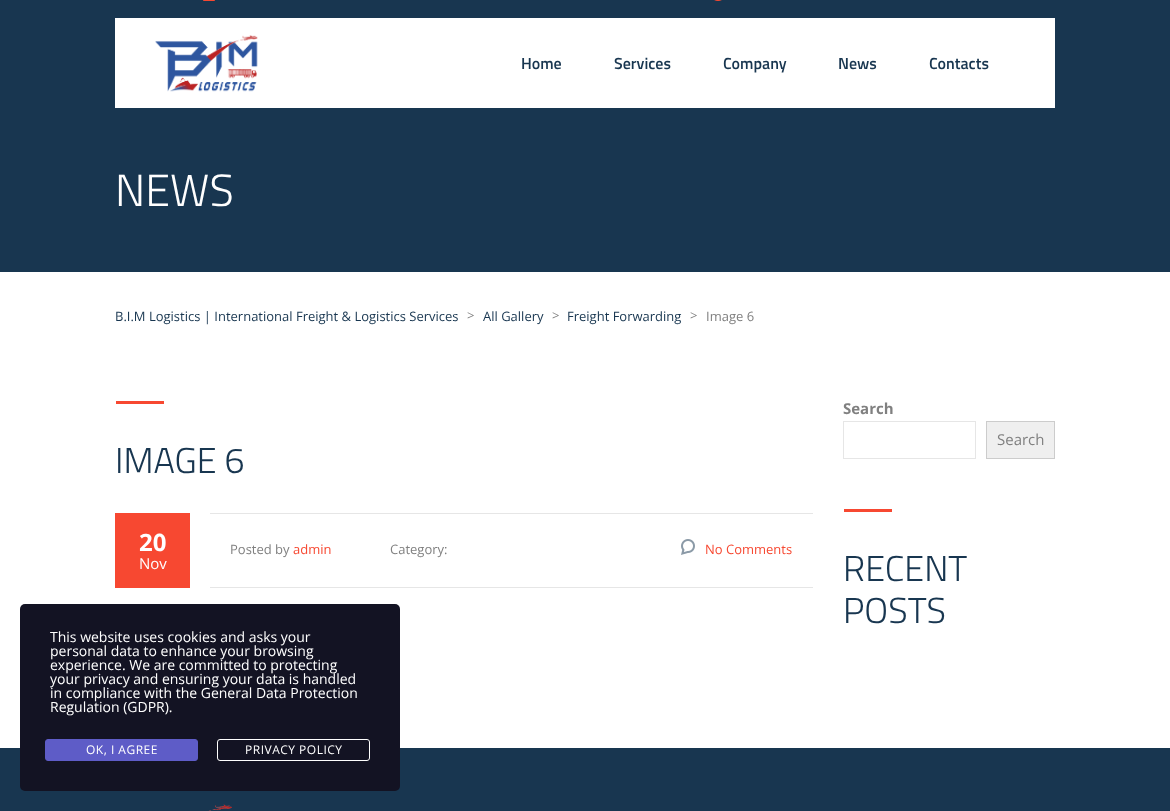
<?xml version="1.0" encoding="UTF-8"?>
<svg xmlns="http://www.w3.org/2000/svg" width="1170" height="811">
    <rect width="100%" height="100%" fill="#FFFFFF"/>
    <rect x="0" y="0" width="1170" height="272" fill="#183650"/>
    <image x="203" y="0" width="12" height="1" href="img_01.png"/>
    <image x="714" y="0" width="8" height="1" href="img_02.png"/>
    <rect x="115" y="18" width="940" height="90" fill="#FFFFFF"/>
    <image x="155" y="35" width="103" height="57" href="img_03.png"/>
    <text x="521" y="69" font-family="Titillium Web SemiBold" font-size="16" font-weight="600" fill="#183650">Home</text>
    <text x="614" y="69" font-family="Titillium Web SemiBold" font-size="16" font-weight="600" fill="#183650">Services</text>
    <text x="723" y="69" font-family="Titillium Web SemiBold" font-size="16" font-weight="600" fill="#183650">Company</text>
    <text x="838" y="69" font-family="Titillium Web SemiBold" font-size="16" font-weight="600" fill="#183650">News</text>
    <text x="929" y="69" font-family="Titillium Web SemiBold" font-size="16" font-weight="600" fill="#183650">Contacts</text>
    <text x="115" y="206" font-family="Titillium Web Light" font-size="45" font-weight="300" fill="#FFFFFF">NEWS</text>
    <text x="115" y="321" font-family="Open Sans" font-size="13" fill="#183650">B.I.M Logistics | International Freight &amp; Logistics Services</text>
    <text x="467" y="320" font-family="Open Sans" font-size="13" fill="#808080">&gt;</text>
    <text x="483" y="321" font-family="Open Sans" font-size="13" fill="#183650">All Gallery</text>
    <text x="552" y="320" font-family="Open Sans" font-size="13" fill="#808080">&gt;</text>
    <text x="567" y="321" font-family="Open Sans" font-size="13" fill="#183650">Freight Forwarding</text>
    <text x="690" y="320" font-family="Open Sans" font-size="13" fill="#808080">&gt;</text>
    <text x="706" y="321" font-family="Open Sans" font-size="13" fill="#808080">Image 6</text>
    <rect x="116" y="401" width="48" height="3" fill="#F74831"/>
    <text x="115" y="473" font-family="Titillium Web Light" font-size="36" font-weight="300" fill="#183650">IMAGE 6</text>
    <rect x="115" y="513" width="75" height="75" fill="#F74831"/>
    <text x="139" y="551" font-family="Open Sans" font-size="24" font-weight="700" fill="#FFFFFF">20</text>
    <text x="139" y="569" font-family="Open Sans" font-size="15" fill="#FFFFFF">Nov</text>
    <rect x="210" y="513" width="603" height="1" fill="#E6E6E6"/>
    <rect x="210" y="587" width="603" height="1" fill="#E6E6E6"/>
    <text x="230" y="554" font-family="Open Sans" font-size="13" fill="#808080">Posted by</text>
    <text x="293" y="554" font-family="Open Sans" font-size="13" fill="#F74831">admin</text>
    <text x="390" y="554" font-family="Open Sans" font-size="13" fill="#808080">Category:</text>
    <image x="681" y="539" width="14" height="16" href="img_04.png"/>
    <text x="705" y="554" font-family="Open Sans" font-size="13" fill="#F74831">No Comments</text>
    <text x="843" y="414" font-family="Open Sans" font-size="15" font-weight="700" fill="#808080">Search</text>
    <rect x="843.5" y="421.5" width="132" height="37" fill="none" stroke="#E6E6E6"/>
    <rect x="986.5" y="421.5" width="68" height="37" fill="#EFEFEF" stroke="#CCCCCC"/>
    <text x="997" y="445" font-family="Open Sans" font-size="15" fill="#808080">Search</text>
    <rect x="844" y="509" width="48" height="3" fill="#F74831"/>
    <text font-family="Titillium Web Light" font-size="36" font-weight="300" fill="#183650">
        <tspan x="843" y="581">RECENT</tspan>
        <tspan x="843" y="623">POSTS</tspan>
    </text>
    <rect x="0" y="748" width="1170" height="63" fill="#183650"/>
    <image x="208" y="804" width="24" height="7" href="img_05.png"/>
    <rect x="20" y="604" width="380" height="187" rx="5" fill="#131323"/>
    <text font-family="Open Sans" font-size="14" fill="#FFFFFF">
        <tspan x="50" y="642">This website uses cookies and asks your</tspan>
        <tspan x="50" y="656">personal data to enhance your browsing</tspan>
        <tspan x="50" y="670">experience. We are committed to protecting</tspan>
        <tspan x="50" y="684">your privacy and ensuring your data is handled</tspan>
        <tspan x="50" y="698">in compliance with the General Data Protection</tspan>
        <tspan x="50" y="712">Regulation (GDPR).</tspan>
    </text>
    <rect x="45.5" y="739.5" width="152" height="21" rx="2.5" fill="#5E5CC7" stroke="#5E5CC7"/>
    <text x="86" y="754" font-family="Open Sans" font-size="12" letter-spacing="0.5" fill="#FFFFFF">OK, I AGREE</text>
    <rect x="217.5" y="739.5" width="152" height="21" rx="2.5" fill="none" stroke="#FFFFFF"/>
    <text x="245" y="754" font-family="Open Sans" font-size="12" letter-spacing="0.5" fill="#FFFFFF">PRIVACY POLICY</text>
</svg>
